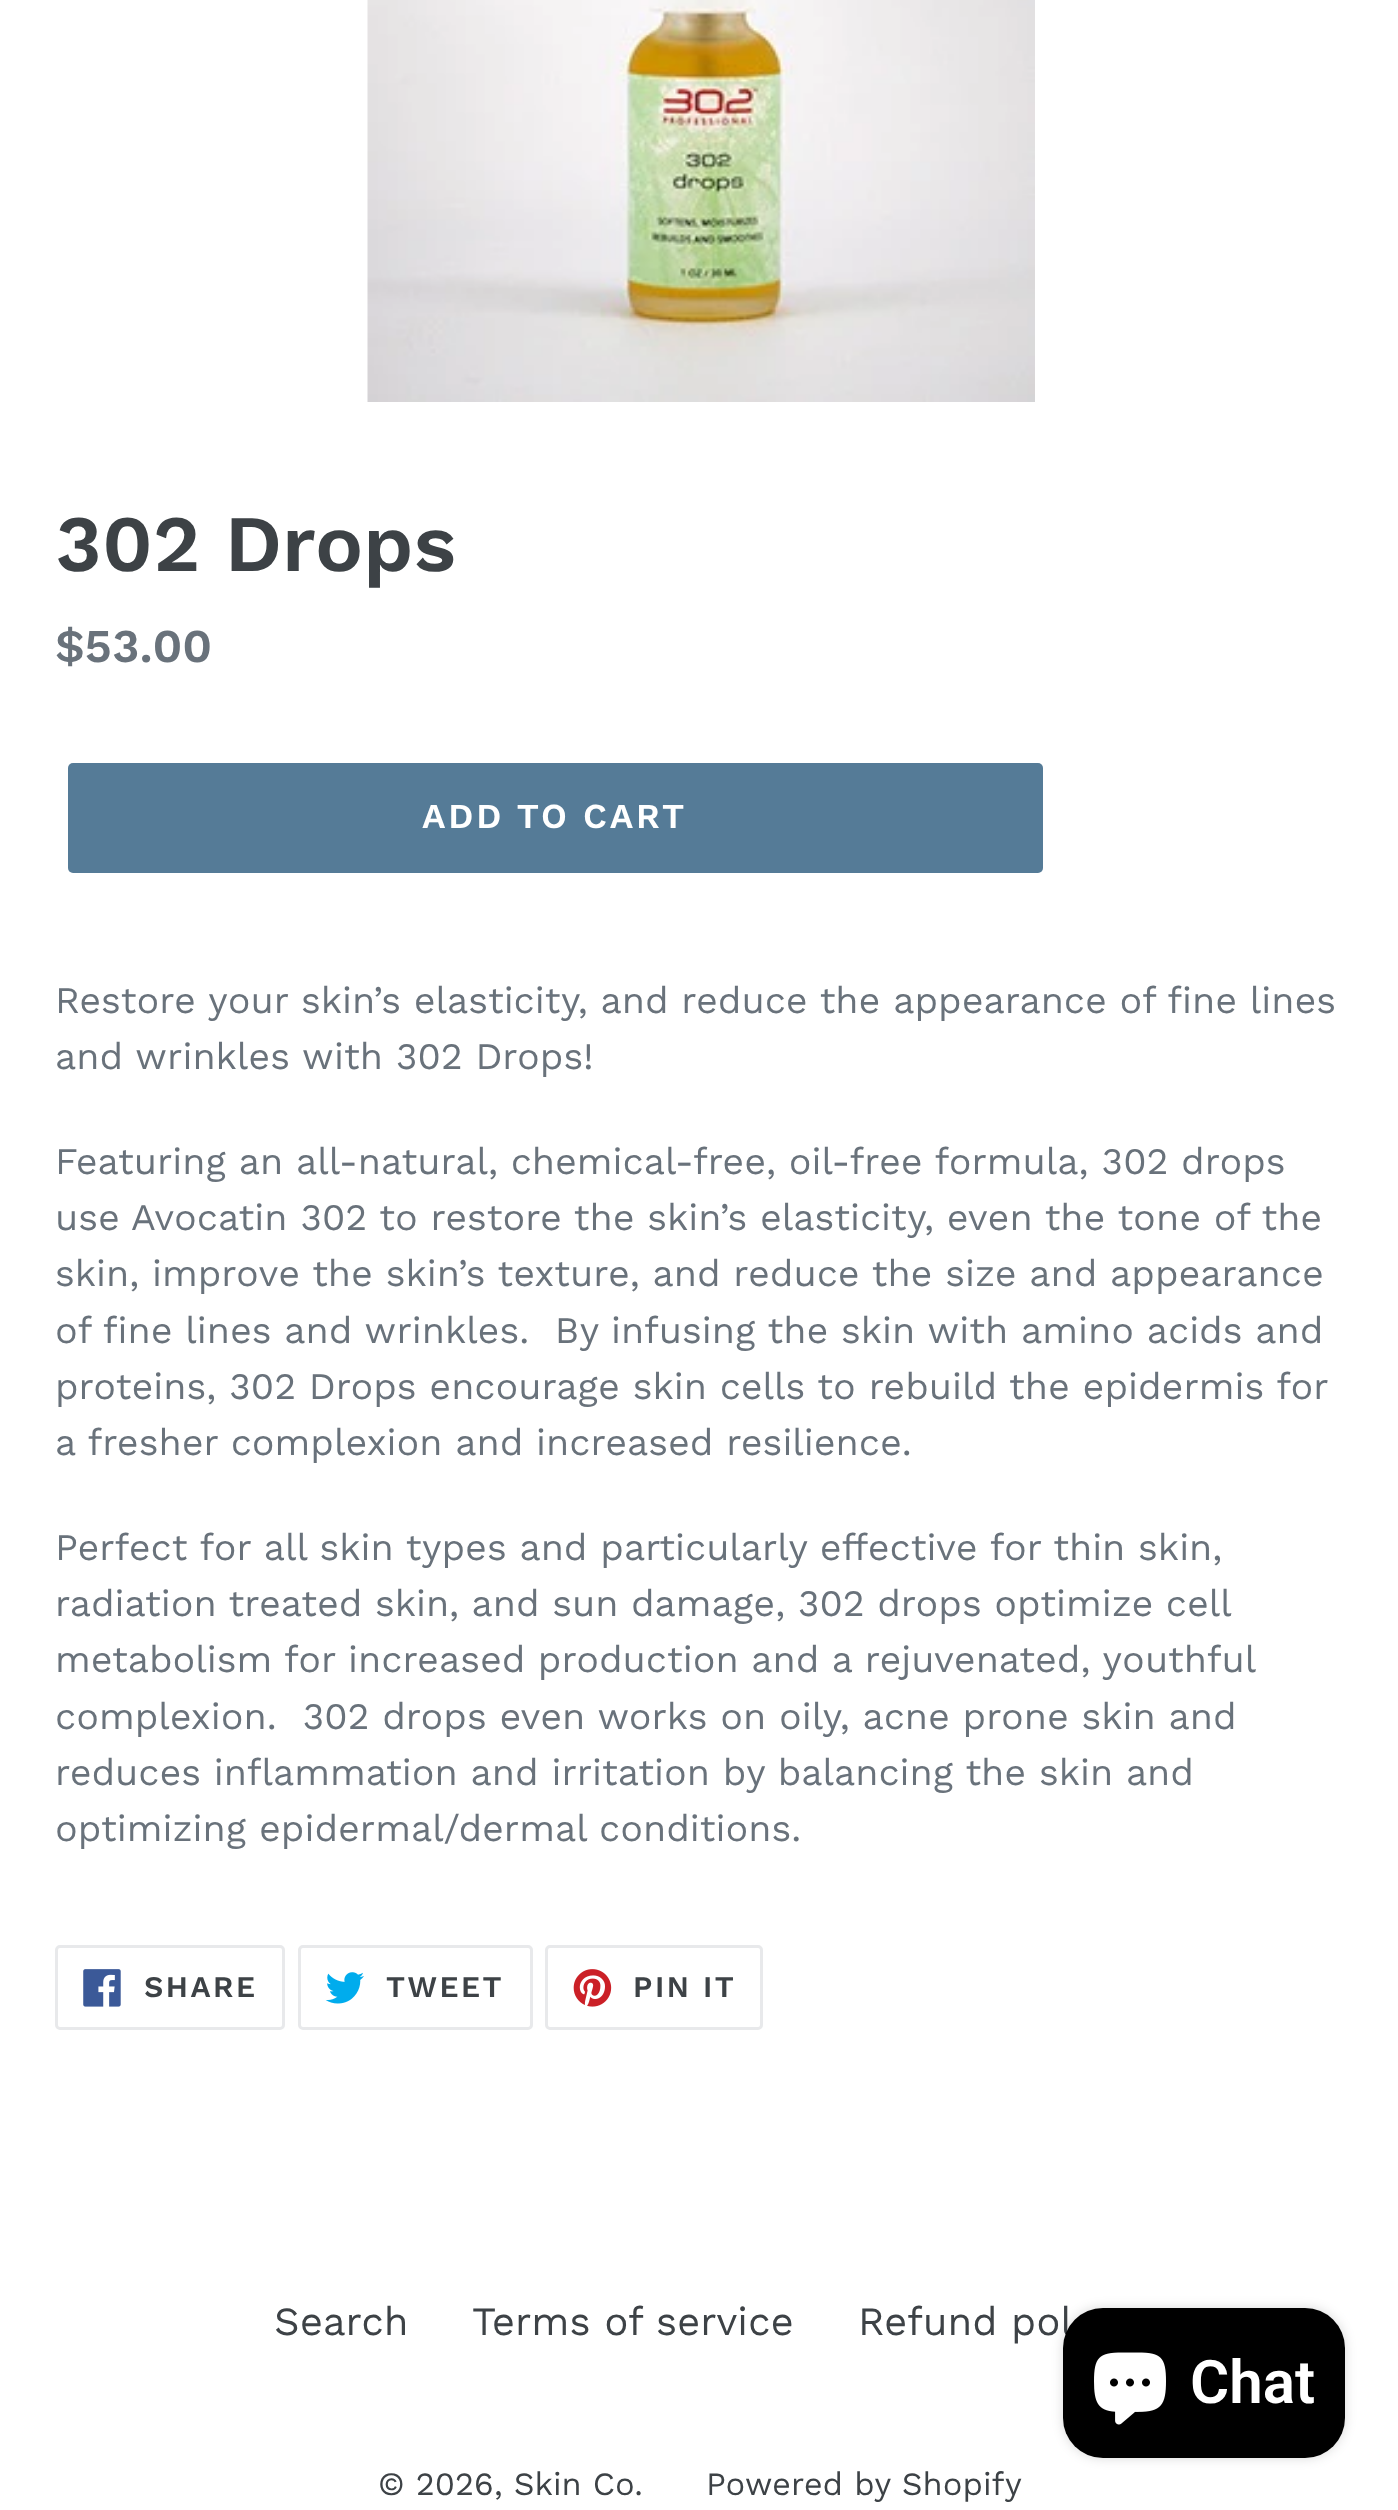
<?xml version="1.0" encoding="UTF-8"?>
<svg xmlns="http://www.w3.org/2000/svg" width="1398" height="2510">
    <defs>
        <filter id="blur1" x="-50%" y="-200%" width="200%" height="500%"><feGaussianBlur stdDeviation="6"/></filter>
    </defs>
    <rect width="100%" height="100%" fill="#FFFFFF"/>
    <image x="367" y="0" width="668" height="402" href="img_01.png"/>
    <text x="55" y="571" font-family="Work Sans" font-size="80" font-weight="600" fill="#3D4246">302 Drops</text>
    <text x="55" y="662" font-family="Work Sans" font-size="47" font-weight="600" fill="#69727B">$53.00</text>
    <rect x="68" y="763" width="975" height="110" rx="5" fill="#557B97"/>
    <text x="422" y="828" font-family="Work Sans" font-size="35" font-weight="600" letter-spacing="2.75" fill="#FFFFFF">ADD TO CART</text>
    <text font-family="Work Sans" font-size="37.5" fill="#69727B">
        <tspan x="55" y="1013">Restore your skin’s elasticity, and reduce the appearance of fine lines</tspan>
        <tspan x="55" y="1069">and wrinkles with 302 Drops!</tspan>
    </text>
    <text font-family="Work Sans" font-size="37.5" fill="#69727B" xml:space="preserve"><tspan x="55" y="1174">Featuring an all-natural, chemical-free, oil-free formula, 302 drops</tspan><tspan x="55" y="1230">use Avocatin 302 to restore the skin’s elasticity, even the tone of the</tspan><tspan x="55" y="1286">skin, improve the skin’s texture, and reduce the size and appearance</tspan><tspan x="55" y="1343">of fine lines and wrinkles.  By infusing the skin with amino acids and</tspan><tspan x="55" y="1399">proteins, 302 Drops encourage skin cells to rebuild the epidermis for</tspan><tspan x="55" y="1455">a fresher complexion and increased resilience.</tspan></text>
    <text font-family="Work Sans" font-size="37.5" fill="#69727B" xml:space="preserve"><tspan x="55" y="1560">Perfect for all skin types and particularly effective for thin skin,</tspan><tspan x="55" y="1616" word-spacing="-0.25">radiation treated skin, and sun damage, 302 drops optimize cell</tspan><tspan x="55" y="1672" word-spacing="-0.25">metabolism for increased production and a rejuvenated, youthful</tspan><tspan x="55" y="1729">complexion.  302 drops even works on oily, acne prone skin and</tspan><tspan x="55" y="1785">reduces inflammation and irritation by balancing the skin and</tspan><tspan x="55" y="1841">optimizing epidermal/dermal conditions.</tspan></text>
    <rect x="56.5" y="1946.5" width="227" height="82" rx="3.5" fill="none" stroke="#E8E9EB" stroke-width="3"/>
    <image x="83" y="1969" width="38" height="38" href="img_02.png"/>
    <text x="144" y="1997" font-family="Work Sans" font-size="30" font-weight="600" letter-spacing="2.5" fill="#3D4246">SHARE</text>
    <rect x="299.5" y="1946.5" width="232" height="82" rx="3.5" fill="none" stroke="#E8E9EB" stroke-width="3"/>
    <image x="325" y="1972" width="39" height="32" href="img_03.png"/>
    <text x="386" y="1997" font-family="Work Sans" font-size="30" font-weight="600" letter-spacing="2.5" fill="#3D4246">TWEET</text>
    <rect x="546.5" y="1946.5" width="215" height="82" rx="3.5" fill="none" stroke="#E8E9EB" stroke-width="3"/>
    <image x="573" y="1969" width="39" height="38" href="img_04.png"/>
    <text x="633" y="1997" font-family="Work Sans" font-size="30" font-weight="600" letter-spacing="2.5" fill="#3D4246">PIN IT</text>
    <text x="274" y="2335" font-family="Work Sans" font-size="40" fill="#3D4246">Search</text>
    <text x="472" y="2335" font-family="Work Sans" font-size="40" fill="#3D4246">Terms of service</text>
    <text x="858" y="2335" font-family="Work Sans" font-size="40" fill="#3D4246">Refund pol</text>
    <text x="378" y="2495" font-family="Work Sans" font-size="32.5" fill="#3D4246">© 2026, Skin Co.</text>
    <text x="706" y="2495" font-family="Work Sans" font-size="32.5" fill="#3D4246">Powered by Shopify</text>
    <rect x="1063" y="2308" width="282" height="150" rx="40" fill="#000000" fill-opacity="0.15" filter="url(#blur1)"/>
    <rect x="1063" y="2308" width="282" height="150" rx="40" fill="#000000"/>
    <image x="1094" y="2352" width="72" height="73" href="img_05.png"/>
    <text x="1190" y="2403" font-family="Roboto" font-size="60" font-weight="600" fill="#FFFFFF">Chat</text>
</svg>
